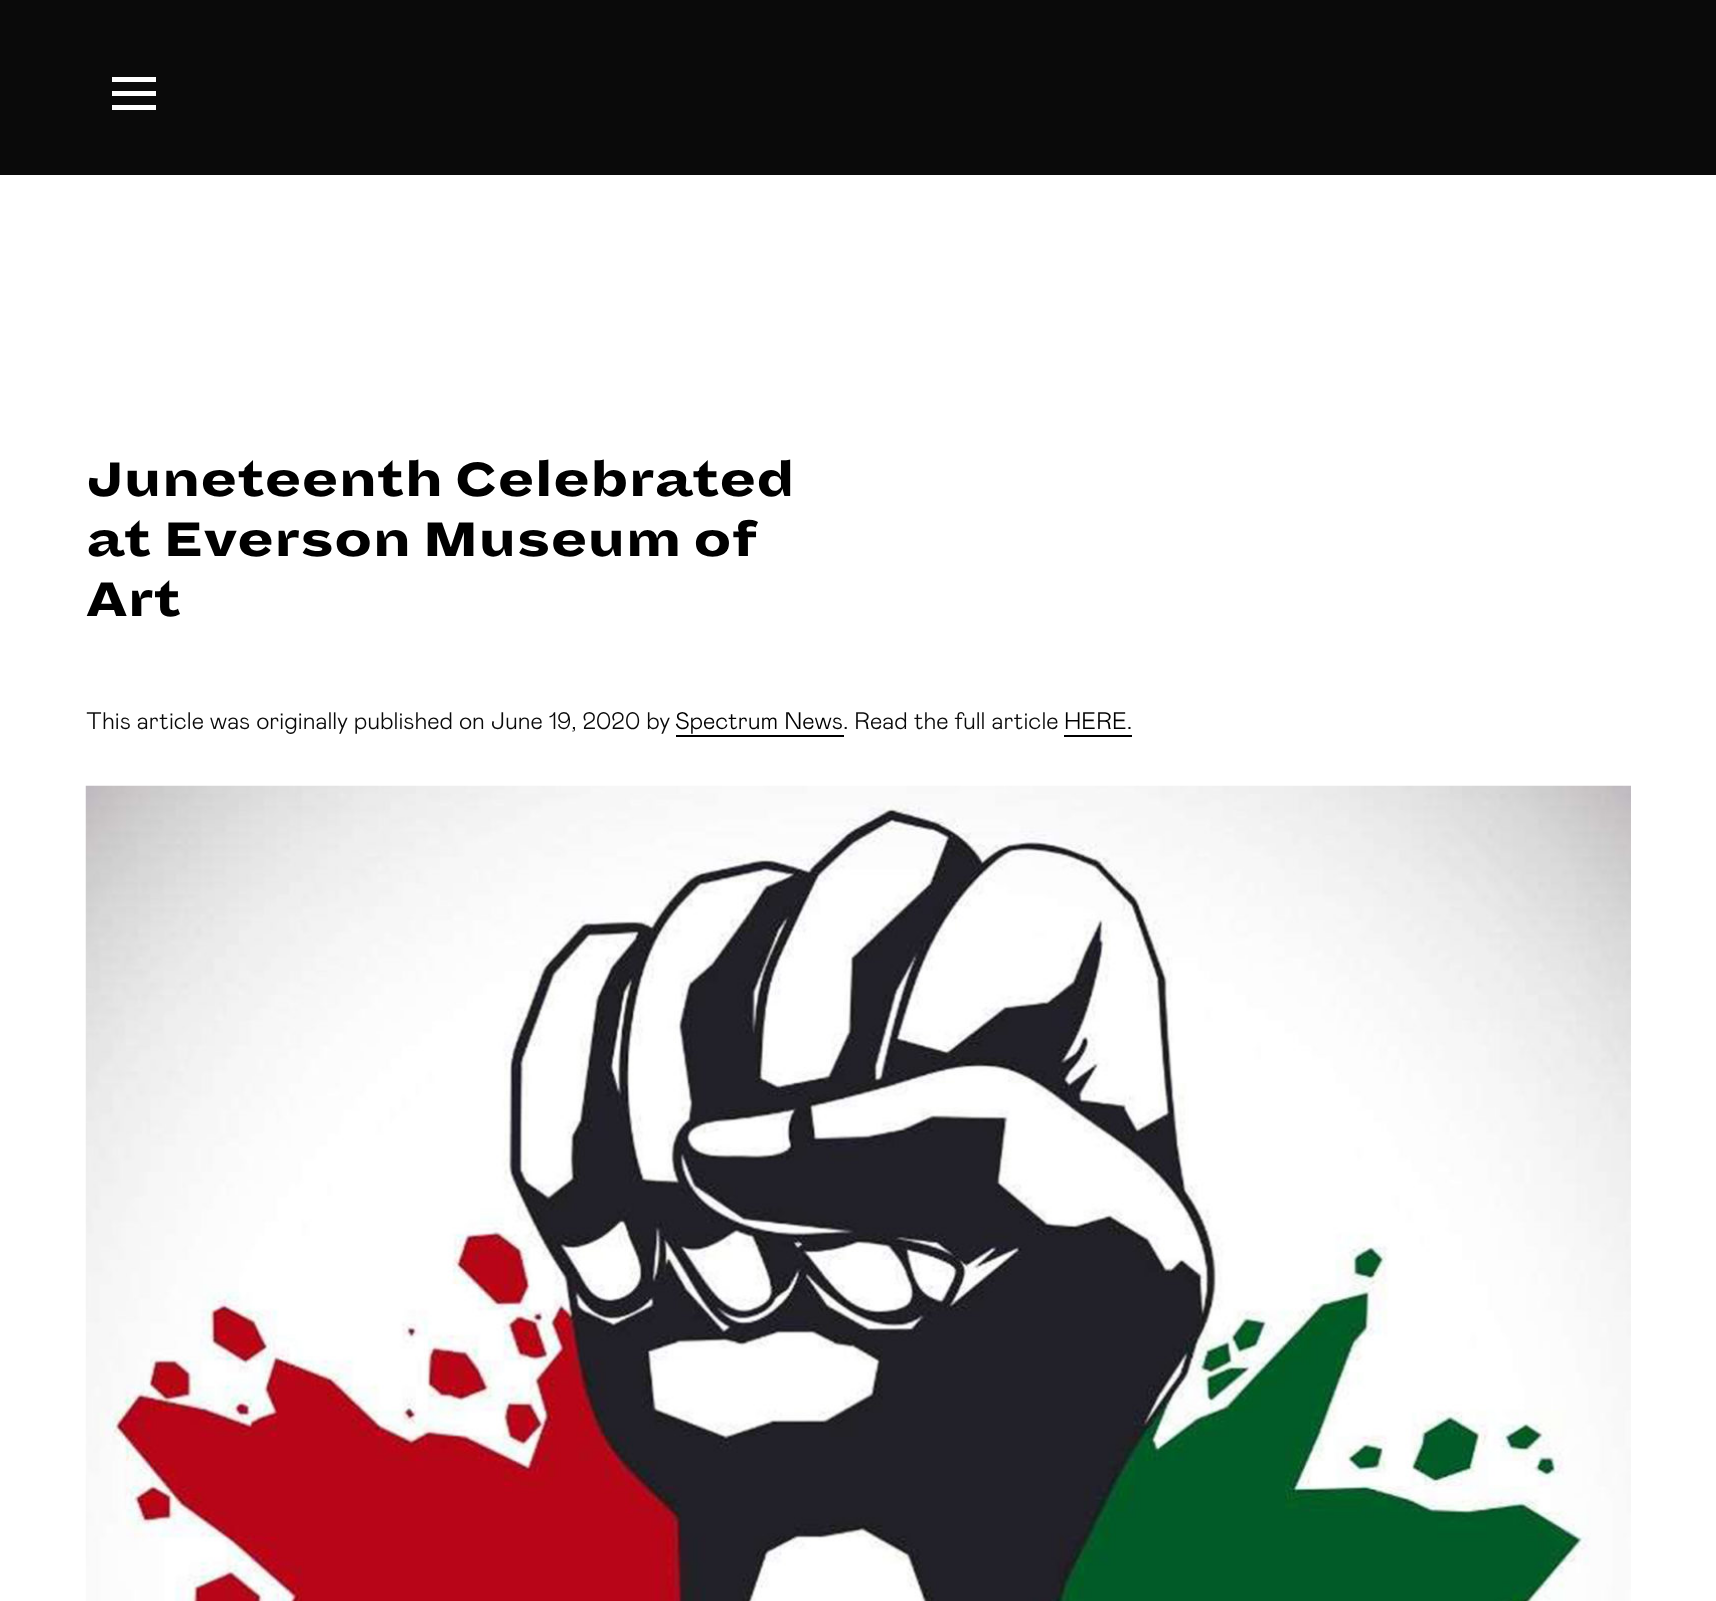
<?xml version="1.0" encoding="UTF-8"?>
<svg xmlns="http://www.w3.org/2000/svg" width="1716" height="1601">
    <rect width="100%" height="100%" fill="#FFFFFF"/>
    <rect x="0" y="0" width="1716" height="175" fill="#0A0A0A"/>
    <rect x="112" y="77" width="44" height="5" fill="#FFFFFF"/>
    <rect x="112" y="91" width="44" height="5" fill="#FFFFFF"/>
    <rect x="112" y="105" width="44" height="5" fill="#FFFFFF"/>
    <text font-family="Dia" font-size="53.25" font-weight="900" fill="#000000">
        <tspan x="86" y="496">Juneteenth Celebrated</tspan>
        <tspan x="86" y="556">at Everson Museum of</tspan>
        <tspan x="86" y="616">Art</tspan>
    </text>
    <text x="86" y="729" font-family="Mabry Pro" font-size="23.85" font-weight="300" fill="#0A0A0A">This article was originally published on June 19, 2020 by</text>
    <text x="675" y="729" font-family="Mabry Pro" font-size="23.85" font-weight="300" fill="#000000">Spectrum News</text>
    <rect x="676" y="735" width="168" height="2" fill="#000000"/>
    <text x="843" y="729" font-family="Mabry Pro" font-size="23.85" font-weight="300" fill="#0A0A0A">. Read the full article</text>
    <text x="1064" y="729" font-family="Mabry Pro" font-size="23.85" font-weight="300" fill="#000000">HERE.</text>
    <rect x="1064" y="735" width="68" height="2" fill="#000000"/>
    <image x="85" y="785" width="1546" height="816" href="img_01.png"/>
</svg>
